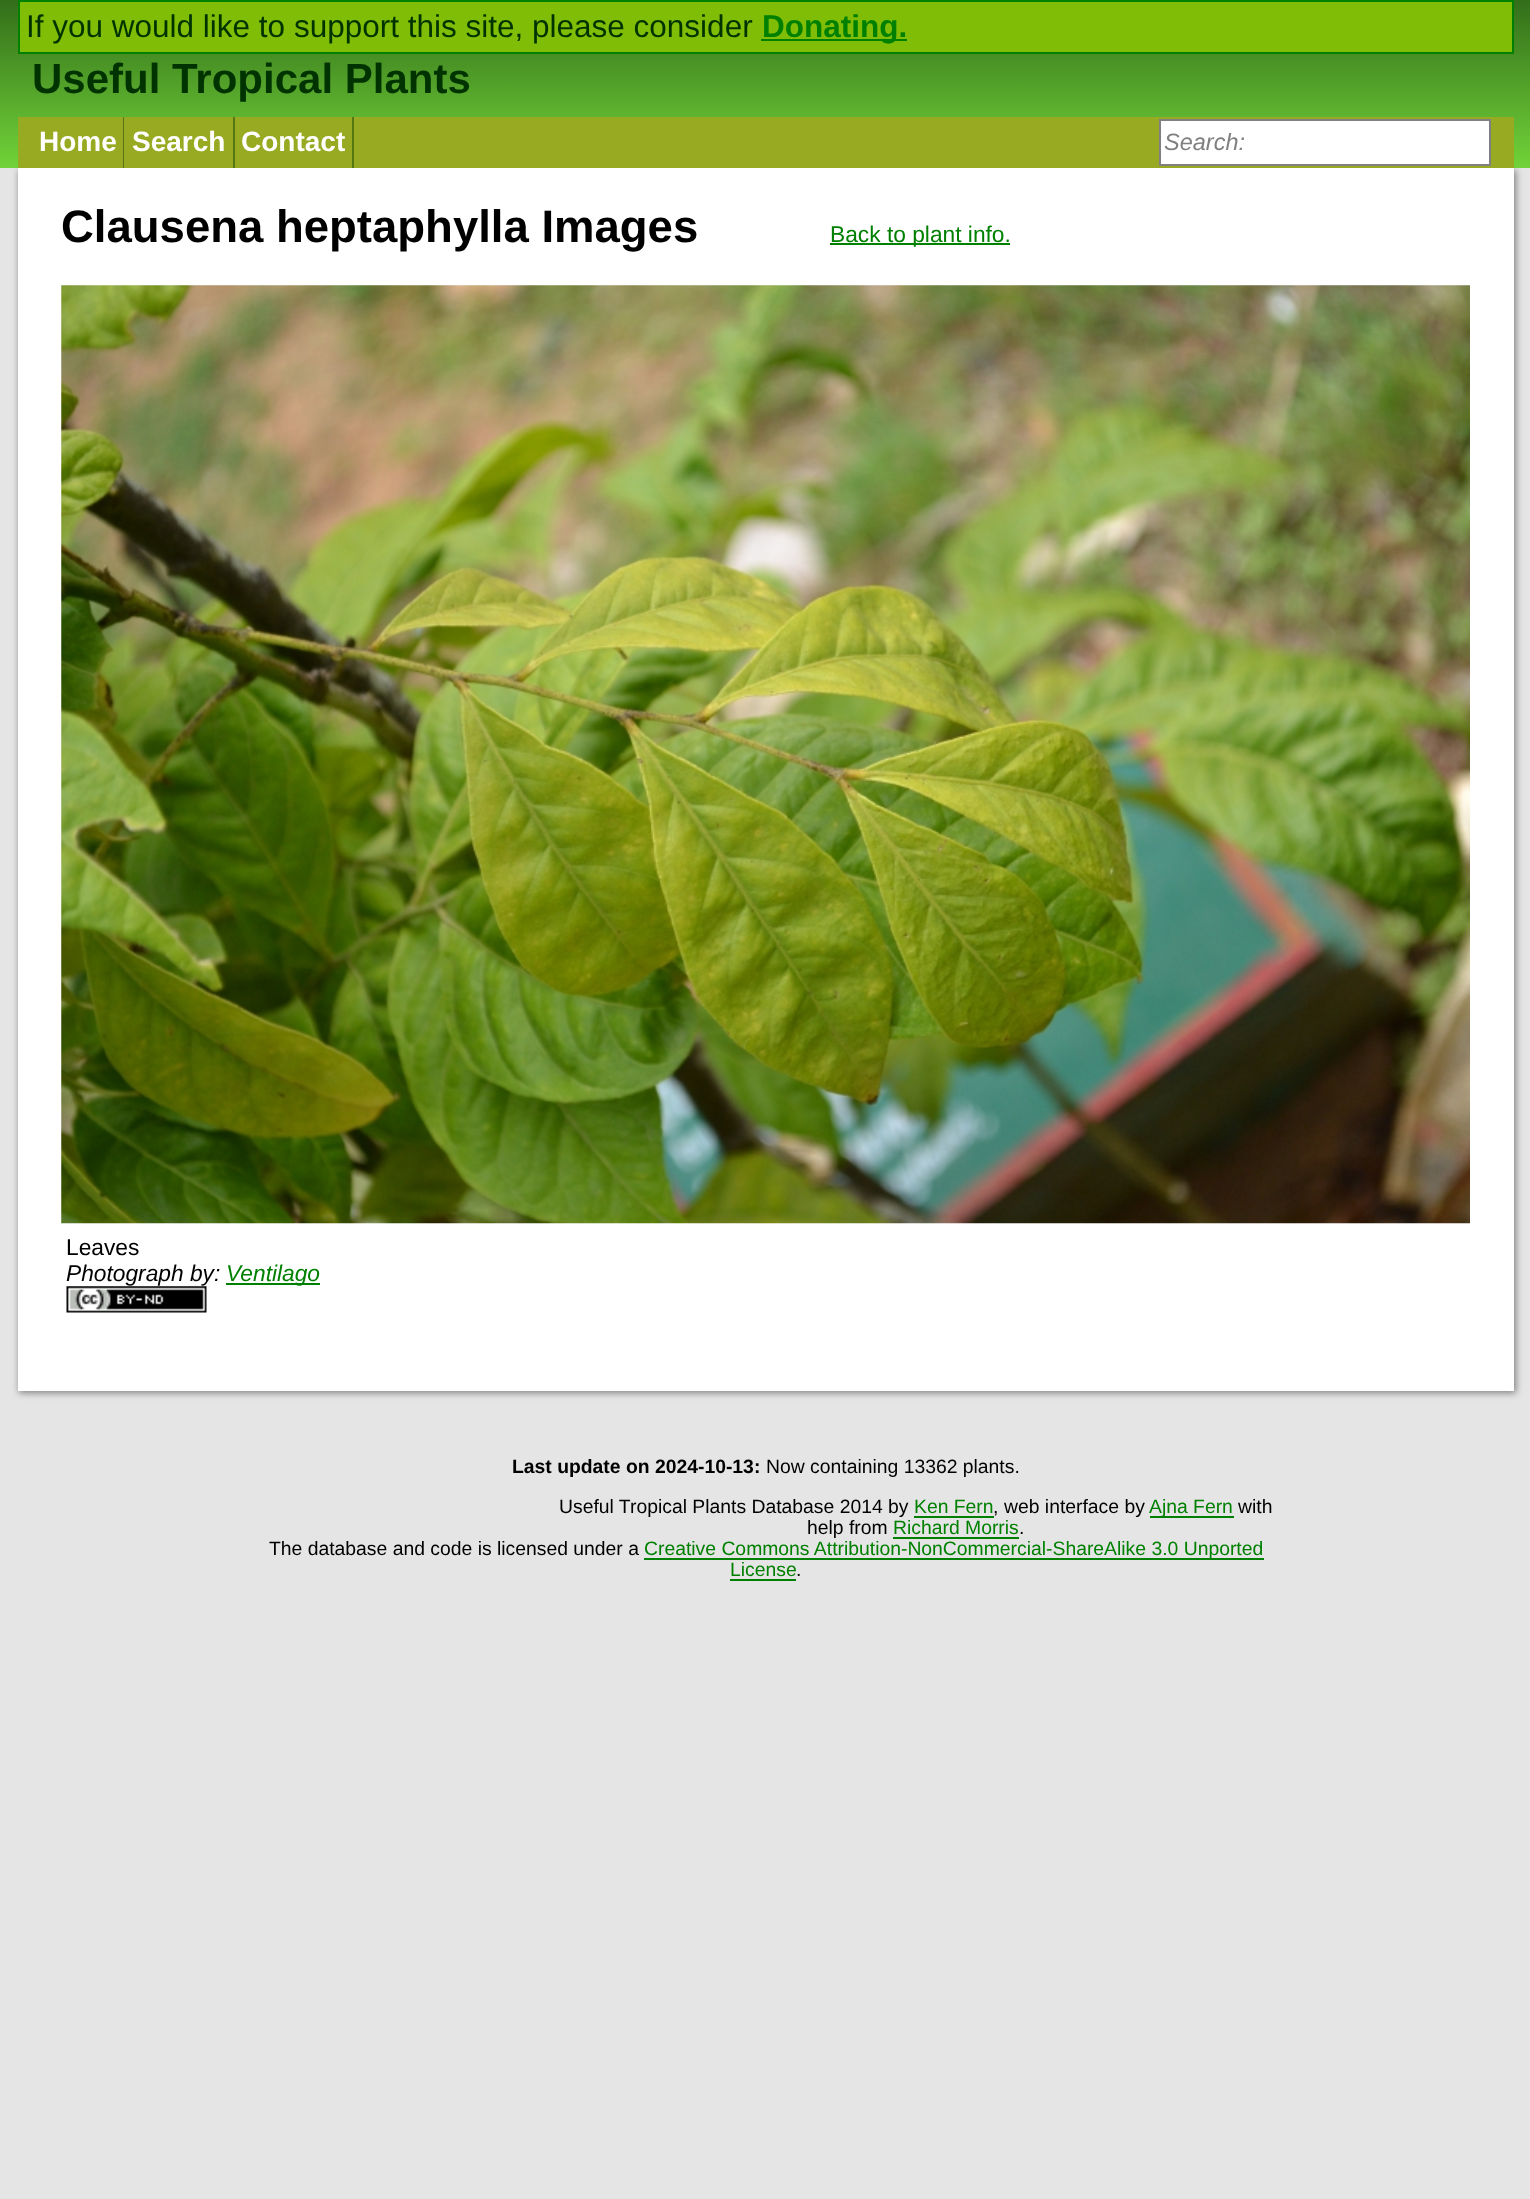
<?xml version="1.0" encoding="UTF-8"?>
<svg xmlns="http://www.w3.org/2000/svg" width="1530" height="2199">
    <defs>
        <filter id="blur1" x="-50%" y="-200%" width="200%" height="500%"><feGaussianBlur stdDeviation="3.5"/></filter>
        <linearGradient id="g1" gradientUnits="userSpaceOnUse" x1="766" y1="0" x2="766" y2="168"><stop offset="0" stop-color="#336E1A"/><stop offset="1" stop-color="#71D339"/></linearGradient>
    </defs>
    <rect width="100%" height="100%" fill="#E5E5E5"/>
    <rect x="19" y="170" width="1497" height="1223" fill="#808080" filter="url(#blur1)"/>
    <rect x="0" y="0" width="1530" height="168" fill="url(#g1)"/>
    <rect x="19" y="1" width="1494" height="52" fill="#80BD06" stroke="#008000" stroke-width="2"/>
    <text x="26" y="37" font-family="Liberation Sans" font-size="31.5" fill="#003300">If you would like to support this site, please consider</text>
    <rect x="761" y="39" width="146" height="2" fill="#008000"/>
    <text x="762" y="37" font-family="Liberation Sans" font-size="31.5" font-weight="700" fill="#008000">Donating.</text>
    <text x="32" y="93" font-family="Liberation Sans" font-size="42" font-weight="700" fill="#003300">Useful Tropical Plants</text>
    <rect x="18" y="117" width="1496" height="51" fill="#98AA21"/>
    <rect x="123" y="117" width="1" height="51" fill="#557711"/>
    <text x="39" y="151" font-family="Liberation Sans" font-size="28" font-weight="700" fill="#FFFFFF">Home</text>
    <rect x="233" y="117" width="2" height="51" fill="#557711"/>
    <text x="132" y="151" font-family="Liberation Sans" font-size="28" font-weight="700" fill="#FFFFFF">Search</text>
    <rect x="352" y="117" width="2" height="51" fill="#557711"/>
    <text x="241" y="151" font-family="Liberation Sans" font-size="28" font-weight="700" fill="#FFFFFF">Contact</text>
    <rect x="1160" y="120" width="330" height="45" fill="#FFFFFF" stroke="#808080" stroke-width="2"/>
    <text x="1164" y="150" font-family="Liberation Sans" font-size="23.5" font-style="italic" fill="#808080">Search:</text>
    <rect x="18" y="168" width="1496" height="1223" fill="#FFFFFF"/>
    <text x="61" y="242" font-family="Liberation Sans" font-size="45.5" font-weight="700" fill="#000000">Clausena heptaphylla Images</text>
    <rect x="830" y="243" width="180" height="2" fill="#008000"/>
    <text x="830" y="242" font-family="Liberation Sans" font-size="22.75" fill="#008000">Back to plant info.</text>
    <image x="61" y="285" width="1409" height="939" href="img_01.png"/>
    <text x="66" y="1255" font-family="Liberation Sans" font-size="22.75" fill="#000000">Leaves</text>
    <text x="66" y="1281" font-family="Liberation Sans" font-size="22.75" font-style="italic" fill="#000000">Photograph by:</text>
    <rect x="226" y="1283" width="94" height="2" fill="#008000"/>
    <text x="226" y="1281" font-family="Liberation Sans" font-size="22.75" font-style="italic" fill="#008000">Ventilago</text>
    <image x="66" y="1286" width="141" height="27" href="img_02.png"/>
    <text x="512" y="1473" font-family="Liberation Sans" font-size="19.35" font-weight="700" fill="#000000">Last update on 2024-10-13:</text>
    <text x="766" y="1473" font-family="Liberation Sans" font-size="19.35" fill="#000000">Now containing 13362 plants.</text>
    <text x="559" y="1513" font-family="Liberation Sans" font-size="19.35" fill="#000000">Useful Tropical Plants Database 2014 by</text>
    <text x="914" y="1513" font-family="Liberation Sans" font-size="19.35" fill="#008000">Ken Fern</text>
    <rect x="914" y="1516" width="80" height="2" fill="#008000"/>
    <text x="993" y="1513" font-family="Liberation Sans" font-size="19.35" fill="#000000">,</text>
    <text x="1004" y="1513" font-family="Liberation Sans" font-size="19.35" fill="#000000">web interface by</text>
    <rect x="1150" y="1516" width="84" height="2" fill="#008000"/>
    <text x="1149" y="1513" font-family="Liberation Sans" font-size="19.35" fill="#008000">Ajna Fern</text>
    <text x="1238" y="1513" font-family="Liberation Sans" font-size="19.35" fill="#000000">with</text>
    <text x="807" y="1534" font-family="Liberation Sans" font-size="19.35" fill="#000000">help from</text>
    <text x="893" y="1534" font-family="Liberation Sans" font-size="19.35" fill="#008000">Richard Morris</text>
    <rect x="893" y="1537" width="126" height="2" fill="#008000"/>
    <text x="1019" y="1534" font-family="Liberation Sans" font-size="19.35" fill="#000000">.</text>
    <text x="269" y="1555" font-family="Liberation Sans" font-size="19.35" fill="#000000">The database and code is licensed under a</text>
    <rect x="644" y="1558" width="620" height="2" fill="#008000"/>
    <text x="644" y="1555" font-family="Liberation Sans" font-size="19.35" fill="#008000">Creative Commons Attribution-NonCommercial-ShareAlike 3.0 Unported</text>
    <text x="730" y="1576" font-family="Liberation Sans" font-size="19.35" fill="#008000">License</text>
    <rect x="730" y="1579" width="66" height="2" fill="#008000"/>
    <text x="796" y="1576" font-family="Liberation Sans" font-size="19.35" fill="#000000">.</text>
</svg>
